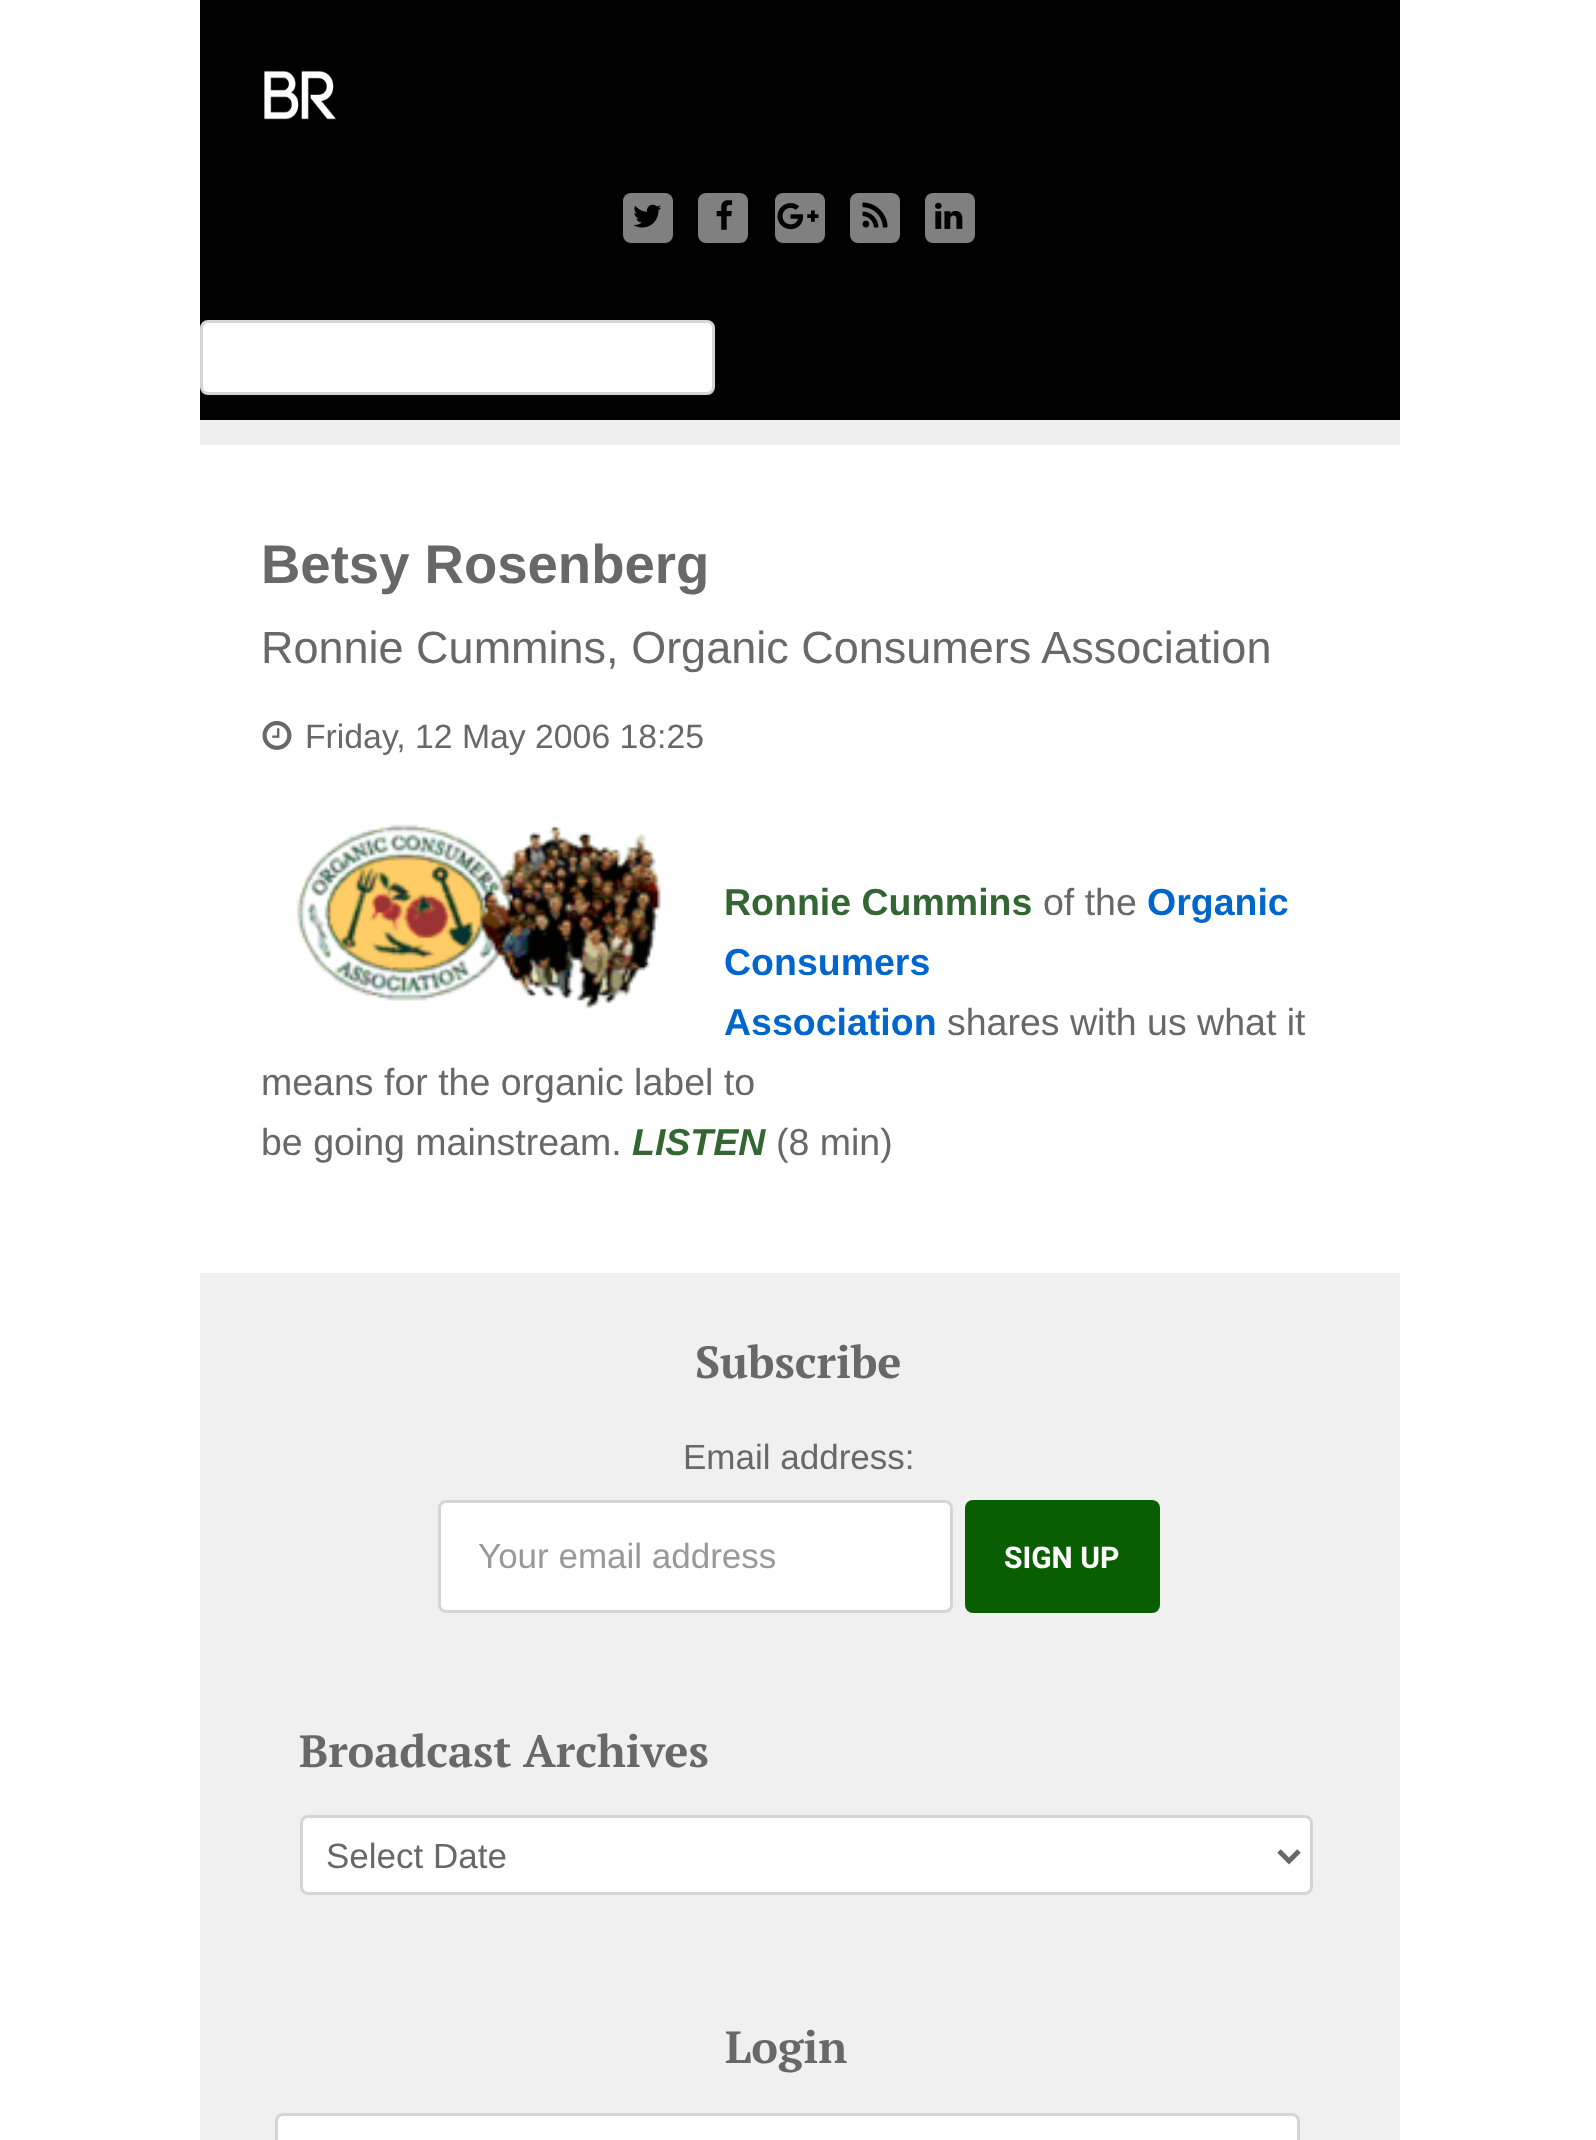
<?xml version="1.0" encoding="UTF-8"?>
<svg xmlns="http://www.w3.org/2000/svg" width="1596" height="2140">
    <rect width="100%" height="100%" fill="#FFFFFF"/>
    <rect x="200" y="0" width="1200" height="420" fill="#000000"/>
    <image x="264" y="70" width="72" height="50" href="img_01.png"/>
    <rect x="623" y="193" width="50" height="50" rx="8" fill="#808080"/>
    <image x="633" y="204" width="29" height="24" href="img_02.png"/>
    <rect x="698" y="193" width="50" height="50" rx="8" fill="#808080"/>
    <image x="716" y="200" width="17" height="30" href="img_03.png"/>
    <rect x="775" y="193" width="50" height="50" rx="8" fill="#808080"/>
    <image x="777" y="203" width="42" height="27" href="img_04.png"/>
    <rect x="850" y="193" width="50" height="50" rx="8" fill="#808080"/>
    <image x="862" y="202" width="26" height="26" href="img_05.png"/>
    <rect x="925" y="193" width="50" height="50" rx="8" fill="#808080"/>
    <image x="935" y="202" width="28" height="27" href="img_06.png"/>
    <rect x="201.5" y="321.5" width="512" height="72" rx="6.5" fill="#FFFFFF" stroke="#D5D5D5" stroke-width="3"/>
    <rect x="200" y="420" width="1200" height="25" fill="#EFEFEF"/>
    <text x="261" y="583" font-family="Liberation Sans" font-size="54.5" font-weight="700" fill="#686868">Betsy Rosenberg</text>
    <text x="261" y="663" font-family="Liberation Sans" font-size="45" fill="#686868">Ronnie Cummins, Organic Consumers Association</text>
    <image x="262" y="721" width="30" height="29" href="img_07.png"/>
    <text x="305" y="748" font-family="Liberation Sans" font-size="33.75" fill="#686868">Friday, 12 May 2006 18:25</text>
    <image x="296" y="824" width="365" height="185" href="img_08.png"/>
    <text x="724" y="915" font-family="Liberation Sans" font-size="37.5" font-weight="700" fill="#336633">Ronnie Cummins</text>
    <text x="1043" y="915" font-family="Liberation Sans" font-size="37.5" fill="#686868">of the</text>
    <text x="1147" y="915" font-family="Liberation Sans" font-size="37.5" font-weight="700" fill="#0066CC">Organic</text>
    <text font-family="Liberation Sans" font-size="37.5" font-weight="700" fill="#0066CC">
        <tspan x="724" y="975">Consumers</tspan>
        <tspan x="724" y="1035">Association</tspan>
    </text>
    <text x="947" y="1035" font-family="Liberation Sans" font-size="37.5" fill="#686868">shares with us what it</text>
    <text font-family="Liberation Sans" font-size="37.5" fill="#686868">
        <tspan x="261" y="1095">means for the organic label to</tspan>
        <tspan x="261" y="1155">be going mainstream.</tspan>
    </text>
    <text x="632" y="1155" font-family="Liberation Sans" font-size="37.5" font-weight="700" font-style="italic" fill="#336633">LISTEN</text>
    <text x="776" y="1155" font-family="Liberation Sans" font-size="37.5" fill="#686868">(8 min)</text>
    <rect x="200" y="1273" width="1200" height="867" fill="#F0F0F0"/>
    <text x="695" y="1378" font-family="PT Serif" font-size="45" font-weight="700" fill="#686868">Subscribe</text>
    <text x="683" y="1469" font-family="Liberation Sans" font-size="35" fill="#686868">Email address:</text>
    <rect x="439.5" y="1501.5" width="512" height="110" rx="6.5" fill="#FFFFFF" stroke="#D5D5D5" stroke-width="3"/>
    <text x="478" y="1568" font-family="Liberation Sans" font-size="35" fill="#999999">Your email address</text>
    <rect x="965" y="1500" width="195" height="113" rx="8" fill="#085E00"/>
    <text x="1004" y="1568" font-family="Roboto" font-size="30" font-weight="700" fill="#FFFFFF">SIGN UP</text>
    <text x="299" y="1767" font-family="PT Serif" font-size="45" font-weight="700" fill="#686868">Broadcast Archives</text>
    <rect x="301.5" y="1816.5" width="1010" height="77" rx="6.5" fill="#FFFFFF" stroke="#D5D5D5" stroke-width="3"/>
    <path d="M 1279 1851 L 1289 1861 L 1299 1851" fill="none" stroke="#686868" stroke-width="5"/>
    <text x="326" y="1868" font-family="Liberation Sans" font-size="35" fill="#686868">Select Date</text>
    <text x="725" y="2063" font-family="PT Serif" font-size="45" font-weight="700" fill="#686868">Login</text>
    <rect x="276.5" y="2114.5" width="1022" height="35" rx="6.5" fill="#FFFFFF" stroke="#D5D5D5" stroke-width="3"/>
</svg>
